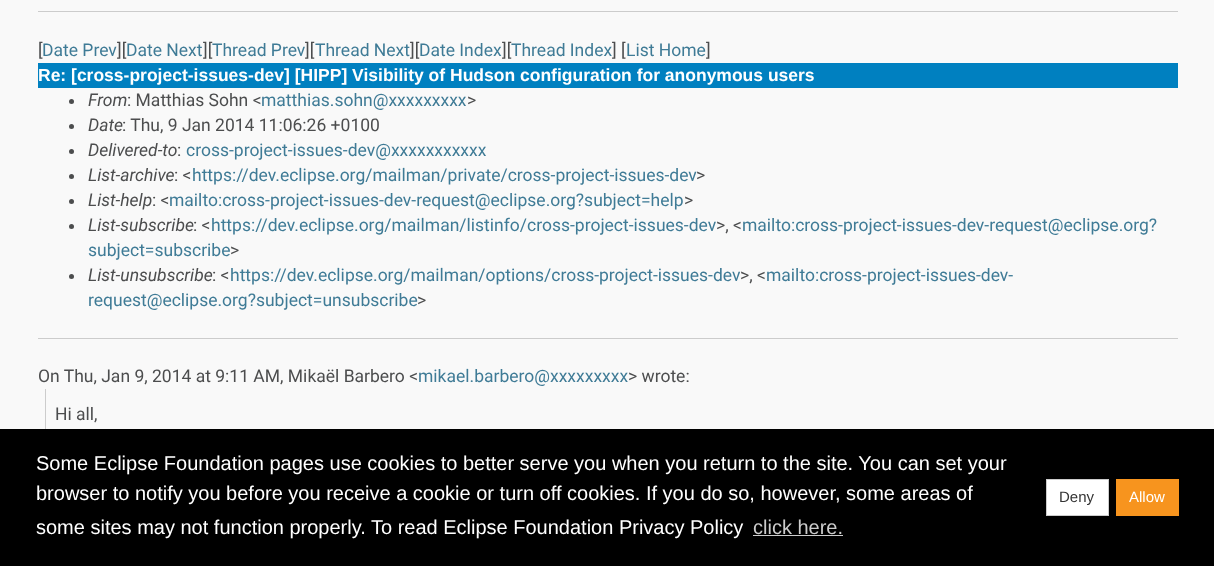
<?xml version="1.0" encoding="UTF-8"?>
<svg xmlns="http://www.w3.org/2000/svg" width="1214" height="566">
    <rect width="100%" height="100%" fill="#F9F9F9"/>
    <rect x="38" y="11" width="1140" height="1" fill="#CCCCCC"/>
    <text x="38" y="56" font-family="Roboto" font-size="17.5" fill="#4C4D4E">[</text>
    <text x="42" y="56" font-family="Roboto" font-size="17.5" fill="#3F7B96">Date Prev</text>
    <text x="117" y="56" font-family="Roboto" font-size="17.5" fill="#4C4D4E">][</text>
    <text x="126" y="56" font-family="Roboto" font-size="17.5" fill="#3F7B96">Date Next</text>
    <text x="203" y="56" font-family="Roboto" font-size="17.5" fill="#4C4D4E">][</text>
    <text x="212" y="56" font-family="Roboto" font-size="17.5" fill="#3F7B96">Thread Prev</text>
    <text x="305" y="56" font-family="Roboto" font-size="17.5" fill="#4C4D4E">][</text>
    <text x="315" y="56" font-family="Roboto" font-size="17.5" fill="#3F7B96">Thread Next</text>
    <text x="410" y="56" font-family="Roboto" font-size="17.5" fill="#4C4D4E">][</text>
    <text x="419" y="56" font-family="Roboto" font-size="17.5" fill="#3F7B96">Date Index</text>
    <text x="502" y="56" font-family="Roboto" font-size="17.5" fill="#4C4D4E">][</text>
    <text x="511" y="56" font-family="Roboto" font-size="17.5" fill="#3F7B96">Thread Index</text>
    <text x="612" y="56" font-family="Roboto" font-size="17.5" fill="#4C4D4E">] [</text>
    <text x="626" y="56" font-family="Roboto" font-size="17.5" fill="#3F7B96">List Home</text>
    <text x="706" y="56" font-family="Roboto" font-size="17.5" fill="#4C4D4E">]</text>
    <rect x="38" y="63" width="1140" height="25" fill="#0080C0"/>
    <text x="38" y="81" font-family="Liberation Sans" font-size="17.5" font-weight="700" fill="#FFFFFF">Re: [cross-project-issues-dev] [HIPP] Visibility of Hudson configuration for anonymous users</text>
    <circle cx="71.5" cy="101.5" r="2.5" fill="#4C4D4E"/>
    <text x="88" y="106" font-family="Roboto" font-size="17.5" font-style="italic" fill="#4C4D4E">From</text>
    <text x="127" y="106" font-family="Roboto" font-size="17.5" fill="#4C4D4E">: Matthias Sohn &lt;</text>
    <text x="261" y="106" font-family="Roboto" font-size="17.5" fill="#3F7B96">matthias.sohn@xxxxxxxxx</text>
    <text x="467" y="106" font-family="Roboto" font-size="17.5" fill="#4C4D4E">&gt;</text>
    <circle cx="71.5" cy="126.5" r="2.5" fill="#4C4D4E"/>
    <text x="88" y="131" font-family="Roboto" font-size="17.5" font-style="italic" fill="#4C4D4E">Date</text>
    <text x="122" y="131" font-family="Roboto" font-size="17.5" fill="#4C4D4E">: Thu, 9 Jan 2014 11:06:26 +0100</text>
    <circle cx="71.5" cy="151.5" r="2.5" fill="#4C4D4E"/>
    <text x="88" y="156" font-family="Roboto" font-size="17.5" font-style="italic" fill="#4C4D4E">Delivered-to</text>
    <text x="177" y="156" font-family="Roboto" font-size="17.5" fill="#4C4D4E">:</text>
    <text x="186" y="156" font-family="Roboto" font-size="17.5" fill="#3F7B96">cross-project-issues-dev@xxxxxxxxxxx</text>
    <circle cx="71.5" cy="176.5" r="2.5" fill="#4C4D4E"/>
    <text x="88" y="181" font-family="Roboto" font-size="17.5" font-style="italic" fill="#4C4D4E">List-archive</text>
    <text x="174" y="181" font-family="Roboto" font-size="17.5" fill="#4C4D4E">: &lt;</text>
    <text x="192" y="181" font-family="Roboto" font-size="17.5" fill="#3F7B96">https://dev.eclipse.org/mailman/private/cross-project-issues-dev</text>
    <text x="696" y="181" font-family="Roboto" font-size="17.5" fill="#4C4D4E">&gt;</text>
    <circle cx="71.5" cy="201.5" r="2.5" fill="#4C4D4E"/>
    <text x="88" y="206" font-family="Roboto" font-size="17.5" font-style="italic" fill="#4C4D4E">List-help</text>
    <text x="152" y="206" font-family="Roboto" font-size="17.5" fill="#4C4D4E">: &lt;</text>
    <text x="169" y="206" font-family="Roboto" font-size="17.5" fill="#3F7B96">mailto:cross-project-issues-dev-request@eclipse.org?subject=help</text>
    <text x="684" y="206" font-family="Roboto" font-size="17.5" fill="#4C4D4E">&gt;</text>
    <circle cx="71.5" cy="226.5" r="2.5" fill="#4C4D4E"/>
    <text x="88" y="231" font-family="Roboto" font-size="17.5" font-style="italic" fill="#4C4D4E">List-subscribe</text>
    <text x="193" y="231" font-family="Roboto" font-size="17.5" fill="#4C4D4E">: &lt;</text>
    <text x="211" y="231" font-family="Roboto" font-size="17.5" fill="#3F7B96">https://dev.eclipse.org/mailman/listinfo/cross-project-issues-dev</text>
    <text x="716" y="231" font-family="Roboto" font-size="17.5" fill="#4C4D4E">&gt;, &lt;</text>
    <text x="742" y="231" font-family="Roboto" font-size="17.5" fill="#3F7B96">mailto:cross-project-issues-dev-request@eclipse.org?</text>
    <text x="88" y="256" font-family="Roboto" font-size="17.5" fill="#3F7B96">subject=subscribe</text>
    <text x="230" y="256" font-family="Roboto" font-size="17.5" fill="#4C4D4E">&gt;</text>
    <circle cx="71.5" cy="276.5" r="2.5" fill="#4C4D4E"/>
    <text x="88" y="281" font-family="Roboto" font-size="17.5" font-style="italic" fill="#4C4D4E">List-unsubscribe</text>
    <text x="212" y="281" font-family="Roboto" font-size="17.5" fill="#4C4D4E">: &lt;</text>
    <text x="230" y="281" font-family="Roboto" font-size="17.5" fill="#3F7B96">https://dev.eclipse.org/mailman/options/cross-project-issues-dev</text>
    <text x="740" y="281" font-family="Roboto" font-size="17.5" fill="#4C4D4E">&gt;, &lt;</text>
    <text x="766" y="281" font-family="Roboto" font-size="17.5" fill="#3F7B96">mailto:cross-project-issues-dev-</text>
    <text x="88" y="306" font-family="Roboto" font-size="17.5" fill="#3F7B96">request@eclipse.org?subject=unsubscribe</text>
    <text x="417" y="306" font-family="Roboto" font-size="17.5" fill="#4C4D4E">&gt;</text>
    <rect x="38" y="338" width="1140" height="1" fill="#CCCCCC"/>
    <text x="38" y="382" font-family="Roboto" font-size="17.5" fill="#4C4D4E">On Thu, Jan 9, 2014 at 9:11 AM, Mikaël Barbero &lt;</text>
    <text x="418" y="382" font-family="Roboto" font-size="17.5" fill="#3F7B96">mikael.barbero@xxxxxxxxx</text>
    <text x="628" y="382" font-family="Roboto" font-size="17.5" fill="#4C4D4E">&gt; wrote:</text>
    <rect x="45" y="389" width="1" height="40" fill="#CCCCCC"/>
    <text x="55" y="420" font-family="Roboto" font-size="17.5" fill="#4C4D4E">Hi all,</text>
    <rect x="0" y="429" width="1214" height="137" fill="#000000"/>
    <text font-family="Liberation Sans" font-size="20" fill="#FFFFFF">
        <tspan x="36" y="470">Some Eclipse Foundation pages use cookies to better serve you when you return to the site. You can set your</tspan>
        <tspan x="36" y="500">browser to notify you before you receive a cookie or turn off cookies. If you do so, however, some areas of</tspan>
        <tspan x="36" y="534">some sites may not function properly. To read Eclipse Foundation Privacy Policy</tspan>
    </text>
    <text x="753" y="534" font-family="Liberation Sans" font-size="20" fill="#CCCCCC">click here.</text>
    <rect x="753" y="535" width="90" height="1" fill="#CCCCCC"/>
    <rect x="1046.5" y="479.5" width="62" height="36" fill="#FFFFFF" stroke="#CCCCCC"/>
    <text x="1059" y="502" font-family="Liberation Sans" font-size="15" fill="#333333">Deny</text>
    <rect x="1116" y="479" width="63" height="37" fill="#F7941E"/>
    <text x="1129" y="502" font-family="Liberation Sans" font-size="15" fill="#FFFFFF">Allow</text>
</svg>
